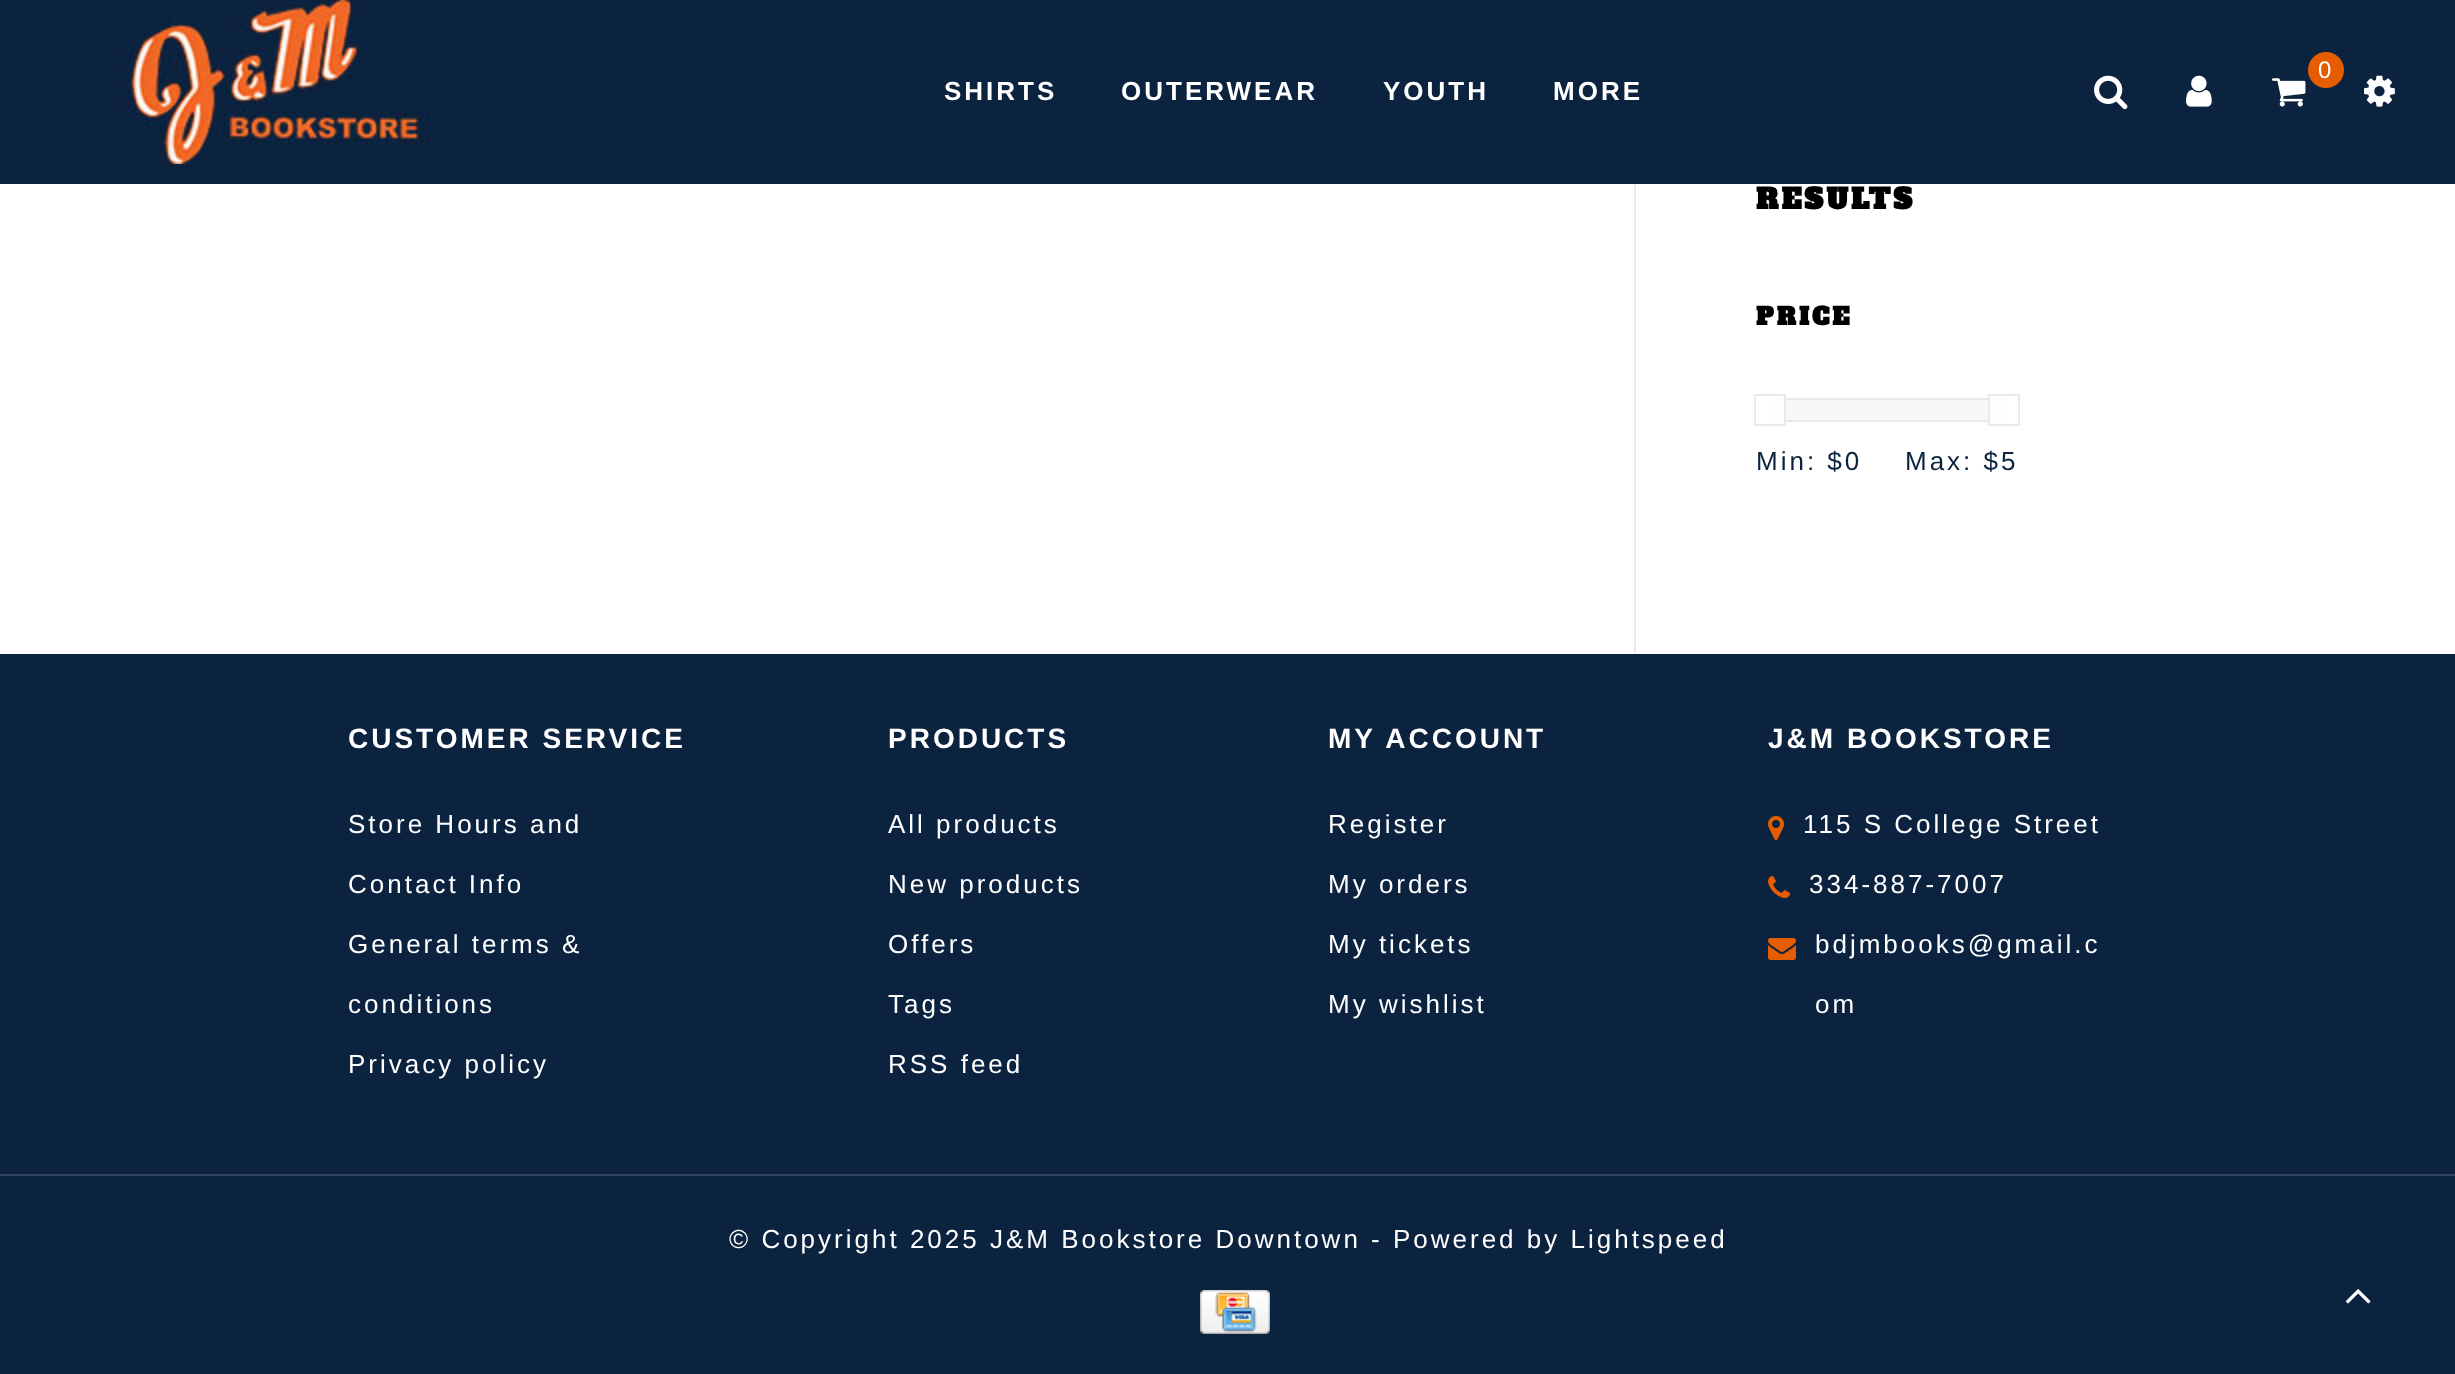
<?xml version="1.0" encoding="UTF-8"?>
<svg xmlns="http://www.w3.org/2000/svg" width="2455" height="1374">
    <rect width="100%" height="100%" fill="#FFFFFF"/>
    <rect x="0" y="0" width="2455" height="184" fill="#0C2340"/>
    <image x="126" y="0" width="304" height="164" href="img_01.png"/>
    <circle cx="2326" cy="70" r="18" fill="#E65C00"/>
    <text x="2318" y="78" font-family="Liberation Sans" font-size="24" letter-spacing="3" fill="#FFFFFF">0</text>
    <image x="2272" y="78" width="34" height="29" href="img_02.png"/>
    <image x="2094" y="75" width="34" height="35" href="img_03.png"/>
    <image x="2186" y="75" width="26" height="32" href="img_04.png"/>
    <image x="2364" y="75" width="31" height="32" href="img_05.png"/>
    <text x="944" y="100" font-family="Liberation Sans" font-size="26" font-weight="700" letter-spacing="3" fill="#FFFFFF">SHIRTS</text>
    <text x="1121" y="100" font-family="Liberation Sans" font-size="26" font-weight="700" letter-spacing="3" fill="#FFFFFF">OUTERWEAR</text>
    <text x="1383" y="100" font-family="Liberation Sans" font-size="26" font-weight="700" letter-spacing="3" fill="#FFFFFF">YOUTH</text>
    <text x="1553" y="100" font-family="Liberation Sans" font-size="26" font-weight="700" letter-spacing="3" fill="#FFFFFF">MORE</text>
    <rect x="1634" y="184" width="2" height="470" fill="#EAEAEA"/>
    <text x="1756" y="209" font-family="Alfa Slab One" font-size="28" font-weight="700" letter-spacing="3" fill="#000000">RESULTS</text>
    <text x="1756" y="325" font-family="Alfa Slab One" font-size="24" font-weight="700" letter-spacing="3" fill="#000000">PRICE</text>
    <rect x="1786" y="400" width="202" height="20" fill="#F7F7F7"/>
    <rect x="1773" y="399" width="232" height="22" fill="none" stroke="#EAEAEA" stroke-width="2"/>
    <rect x="1772" y="398" width="12" height="24" fill="#FEFEFE"/>
    <rect x="1755" y="395" width="30" height="30" fill="none" stroke="#EAEAEA" stroke-width="2"/>
    <rect x="1990" y="398" width="16" height="24" fill="#FEFEFE"/>
    <rect x="1989" y="395" width="30" height="30" fill="none" stroke="#EAEAEA" stroke-width="2"/>
    <text x="1756" y="470" font-family="Liberation Sans" font-size="26" letter-spacing="3" fill="#0C2340">Min: $0</text>
    <text x="1905" y="470" font-family="Liberation Sans" font-size="26" letter-spacing="3" fill="#0C2340">Max: $5</text>
    <rect x="0" y="654" width="2455" height="720" fill="#0C2340"/>
    <text x="348" y="748" font-family="Liberation Sans" font-size="28" font-weight="700" letter-spacing="3" fill="#FFFFFF">CUSTOMER SERVICE</text>
    <text x="348" y="833" font-family="Liberation Sans" font-size="26" letter-spacing="3" fill="#FFFFFF">Store Hours and</text>
    <text x="348" y="893" font-family="Liberation Sans" font-size="26" letter-spacing="3" fill="#FFFFFF">Contact Info</text>
    <text x="348" y="953" font-family="Liberation Sans" font-size="26" letter-spacing="3" fill="#FFFFFF">General terms &amp;</text>
    <text x="348" y="1013" font-family="Liberation Sans" font-size="26" letter-spacing="3" fill="#FFFFFF">conditions</text>
    <text x="348" y="1073" font-family="Liberation Sans" font-size="26" letter-spacing="3" fill="#FFFFFF">Privacy policy</text>
    <text x="888" y="748" font-family="Liberation Sans" font-size="28" font-weight="700" letter-spacing="3" fill="#FFFFFF">PRODUCTS</text>
    <text x="888" y="833" font-family="Liberation Sans" font-size="26" letter-spacing="3" fill="#FFFFFF">All products</text>
    <text x="888" y="893" font-family="Liberation Sans" font-size="26" letter-spacing="3" fill="#FFFFFF">New products</text>
    <text x="888" y="953" font-family="Liberation Sans" font-size="26" letter-spacing="3" fill="#FFFFFF">Offers</text>
    <text x="888" y="1013" font-family="Liberation Sans" font-size="26" letter-spacing="3" fill="#FFFFFF">Tags</text>
    <text x="888" y="1073" font-family="Liberation Sans" font-size="26" letter-spacing="3" fill="#FFFFFF">RSS feed</text>
    <text x="1328" y="748" font-family="Liberation Sans" font-size="28" font-weight="700" letter-spacing="3" fill="#FFFFFF">MY ACCOUNT</text>
    <text x="1328" y="833" font-family="Liberation Sans" font-size="26" letter-spacing="3" fill="#FFFFFF">Register</text>
    <text x="1328" y="893" font-family="Liberation Sans" font-size="26" letter-spacing="3" fill="#FFFFFF">My orders</text>
    <text x="1328" y="953" font-family="Liberation Sans" font-size="26" letter-spacing="3" fill="#FFFFFF">My tickets</text>
    <text x="1328" y="1013" font-family="Liberation Sans" font-size="26" letter-spacing="3" fill="#FFFFFF">My wishlist</text>
    <text x="1768" y="748" font-family="Liberation Sans" font-size="28" font-weight="700" letter-spacing="3" fill="#FFFFFF">J&amp;M BOOKSTORE</text>
    <image x="1768" y="816" width="16" height="24" href="img_06.png"/>
    <text x="1803" y="833" font-family="Liberation Sans" font-size="26" letter-spacing="3" fill="#FFFFFF">115 S College Street</text>
    <image x="1768" y="876" width="22" height="22" href="img_07.png"/>
    <text x="1809" y="893" font-family="Liberation Sans" font-size="26" letter-spacing="3" fill="#FFFFFF">334-887-7007</text>
    <image x="1768" y="938" width="28" height="22" href="img_08.png"/>
    <text x="1815" y="953" font-family="Liberation Sans" font-size="26" letter-spacing="3" fill="#FFFFFF">bdjmbooks@gmail.c</text>
    <text x="1815" y="1013" font-family="Liberation Sans" font-size="26" letter-spacing="3" fill="#FFFFFF">om</text>
    <rect x="0" y="1174" width="2455" height="2" fill="#30445D"/>
    <text x="729" y="1248" font-family="Liberation Sans" font-size="26" letter-spacing="3" fill="#FFFFFF">© Copyright 2025 J&amp;M Bookstore Downtown - Powered by Lightspeed</text>
    <image x="1200" y="1290" width="70" height="44" href="img_09.png"/>
    <image x="2345" y="1289" width="26" height="15" href="img_10.png"/>
</svg>
